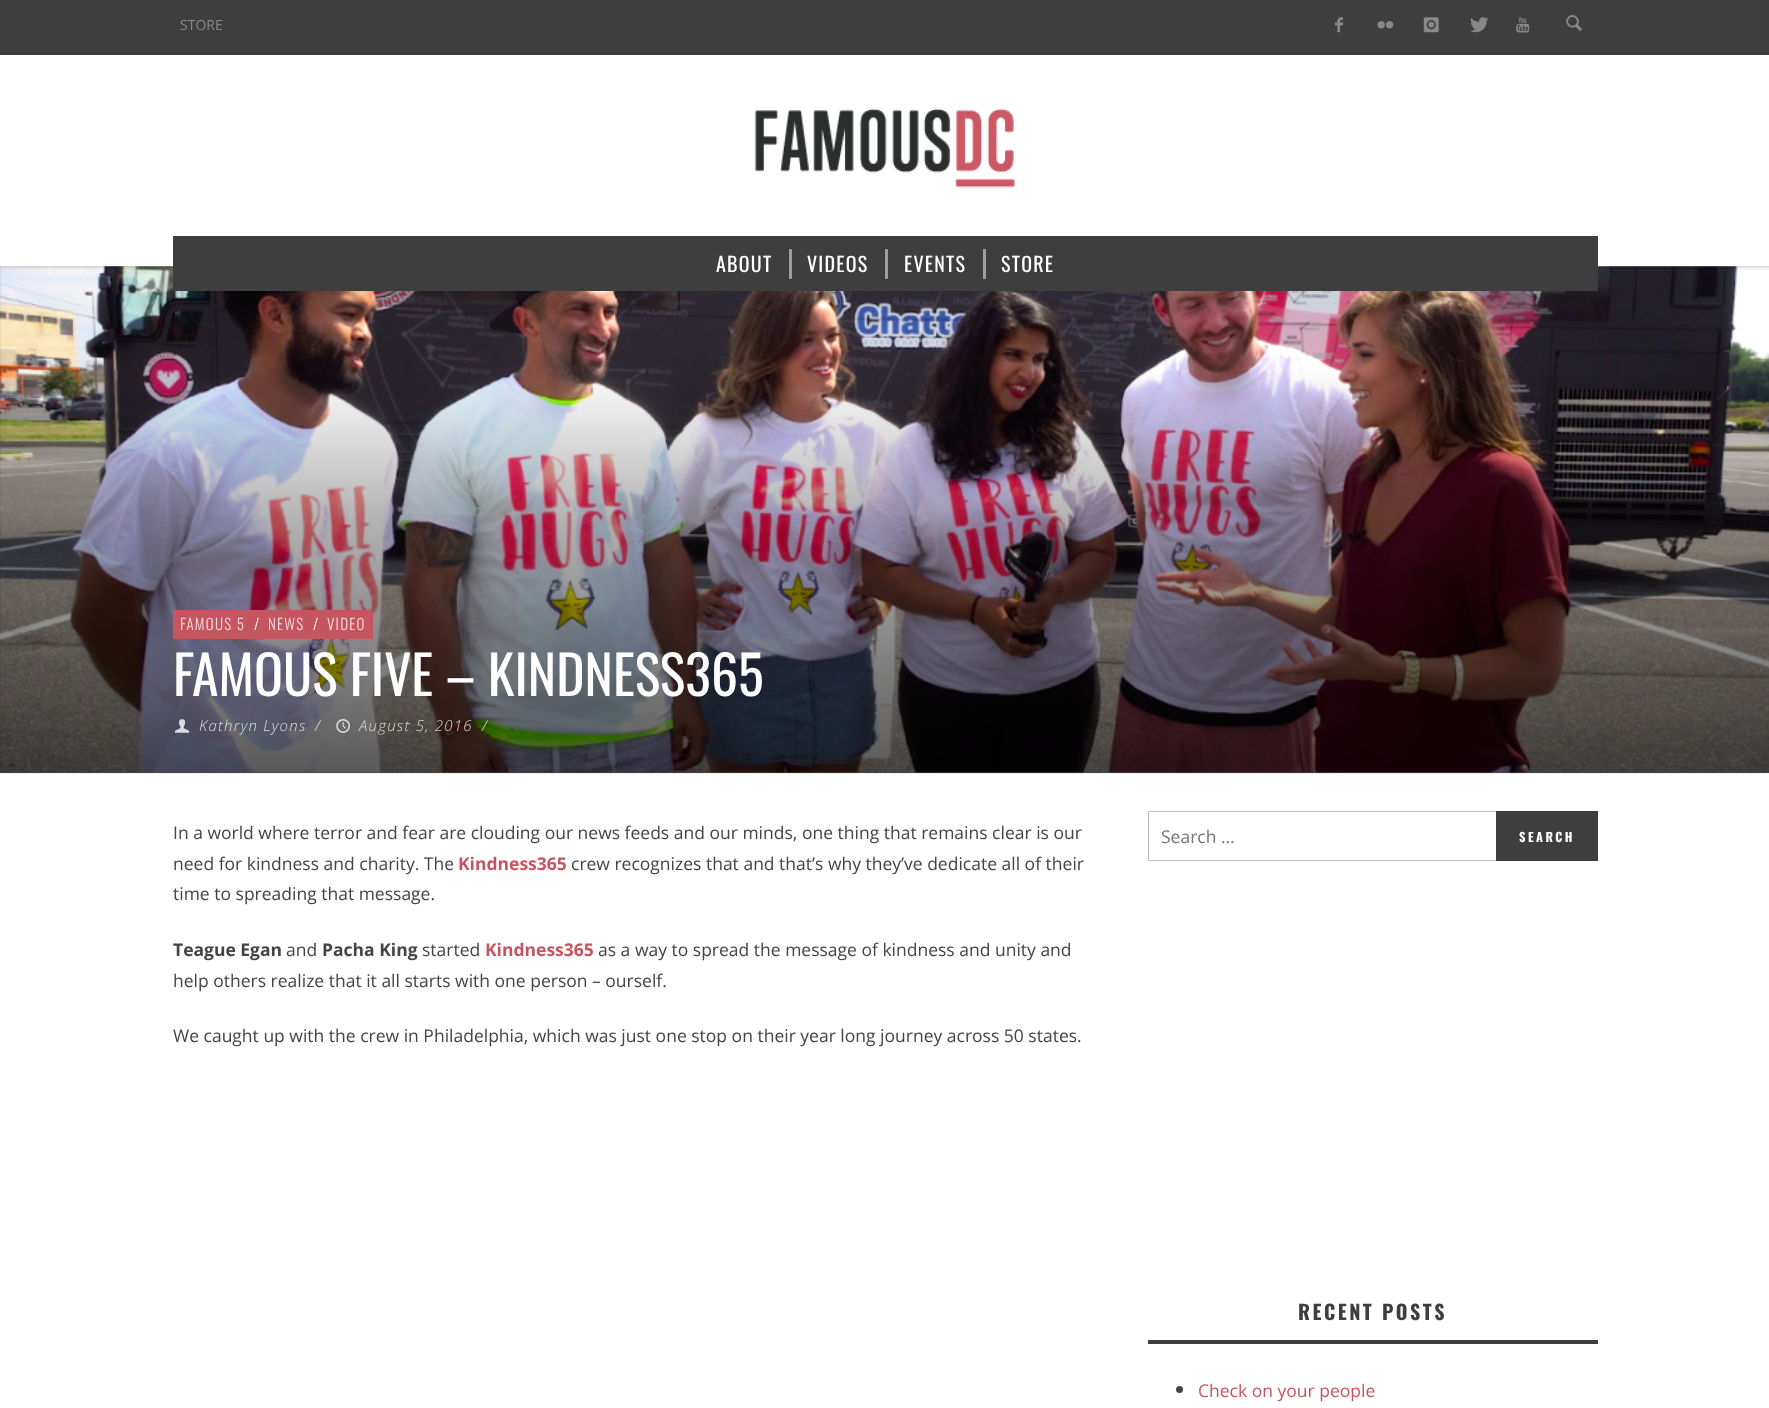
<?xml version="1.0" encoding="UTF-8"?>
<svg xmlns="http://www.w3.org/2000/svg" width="1769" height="1408">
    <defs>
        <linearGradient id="g1" gradientUnits="userSpaceOnUse" x1="885" y1="266" x2="885" y2="773"><stop offset="0" stop-color="#000000" stop-opacity="0.03"/><stop offset="0.02" stop-color="#000000" stop-opacity="0"/></linearGradient>
        <linearGradient id="g2" gradientUnits="userSpaceOnUse" x1="885" y1="773" x2="885" y2="266"><stop offset="0" stop-color="#000000" stop-opacity="0.65"/><stop offset="0.5" stop-color="#000000" stop-opacity="0.3"/><stop offset="0.8" stop-color="#000000" stop-opacity="0"/><stop offset="0.99" stop-color="#000000" stop-opacity="0"/><stop offset="1" stop-color="#000000" stop-opacity="0.08"/></linearGradient>
    </defs>
    <rect width="100%" height="100%" fill="#FFFFFF"/>
    <rect x="0" y="0" width="1769" height="55" fill="#3E3E3E"/>
    <text x="180" y="30" font-family="Open Sans" font-size="14" fill="#888888">STORE</text>
    <image x="1335" y="17" width="9" height="16" href="img_01.png"/>
    <image x="1377" y="21" width="17" height="8" href="img_02.png"/>
    <image x="1423" y="17" width="16" height="16" href="img_03.png"/>
    <image x="1470" y="17" width="19" height="16" href="img_04.png"/>
    <image x="1516" y="17" width="14" height="16" href="img_05.png"/>
    <image x="1566" y="15" width="16" height="16" href="img_06.png"/>
    <image x="754" y="108" width="262" height="80" href="img_07.png"/>
    <image x="0" y="266" width="1769" height="507" href="img_08.png"/>
    <rect x="0" y="266" width="1769" height="3" fill="url(#g1)"/>
    <rect x="0" y="266" width="1769" height="507" fill="url(#g2)"/>
    <rect x="0.5" y="266.5" width="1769" height="506" fill="none" stroke="#000000" stroke-opacity="0.05"/>
    <rect x="173" y="236" width="1425" height="55" fill="#3E3E3E"/>
    <text x="716" y="272" font-family="Oswald" font-size="20" letter-spacing="1.25" fill="#FFFFFF">ABOUT</text>
    <rect x="789" y="249" width="3" height="30" fill="#9F9F9F"/>
    <text x="807" y="272" font-family="Oswald" font-size="20" letter-spacing="1.25" fill="#FFFFFF">VIDEOS</text>
    <rect x="885" y="249" width="3" height="30" fill="#9F9F9F"/>
    <text x="904" y="272" font-family="Oswald" font-size="20" letter-spacing="1.25" fill="#FFFFFF">EVENTS</text>
    <rect x="983" y="249" width="3" height="30" fill="#9F9F9F"/>
    <text x="1001" y="272" font-family="Oswald" font-size="20" letter-spacing="1.25" fill="#FFFFFF">STORE</text>
    <rect x="0" y="773" width="1769" height="1" fill="#EEEEEE"/>
    <rect x="173" y="610" width="200" height="29" fill="#C5565F"/>
    <text x="180" y="630" font-family="Oswald" font-size="15" font-weight="300" letter-spacing="1.25" fill="#F3DDDF">FAMOUS 5</text>
    <text x="254" y="630" font-family="Oswald" font-size="15" font-weight="300" fill="#FFFFFF">/</text>
    <text x="268" y="630" font-family="Oswald" font-size="15" font-weight="300" letter-spacing="1.25" fill="#F3DDDF">NEWS</text>
    <text x="313" y="630" font-family="Oswald" font-size="15" font-weight="300" fill="#FFFFFF">/</text>
    <text x="327" y="630" font-family="Oswald" font-size="15" font-weight="300" letter-spacing="1.25" fill="#F3DDDF">VIDEO</text>
    <text x="173" y="696" font-family="Oswald" font-size="53.75" fill="#FFFFFF">FAMOUS FIVE – KINDNESS365</text>
    <image x="175" y="719" width="15" height="14" href="img_09.png"/>
    <text x="199" y="731" font-family="Open Sans" font-size="15" font-weight="300" font-style="italic" letter-spacing="1.25" fill="#DDDDE0">Kathryn Lyons</text>
    <text x="315" y="731" font-family="Open Sans" font-size="15" font-weight="300" font-style="italic" letter-spacing="1.25" fill="#DDDDE0">/</text>
    <image x="336" y="719" width="14" height="14" href="img_10.png"/>
    <text x="359" y="731" font-family="Open Sans" font-size="15" font-weight="300" font-style="italic" letter-spacing="1.25" fill="#DBD9D8">August 5, 2016</text>
    <text x="482" y="731" font-family="Open Sans" font-size="15" font-weight="300" font-style="italic" letter-spacing="1.25" fill="#D5DDCD">/</text>
    <text font-family="Open Sans" font-size="17.5" fill="#444444">
        <tspan x="173" y="839">In a world where terror and fear are clouding our news feeds and our minds, one thing that remains clear is our</tspan>
        <tspan x="173" y="870">need for kindness and charity. The</tspan>
    </text>
    <text x="458" y="870" font-family="Open Sans" font-size="17.5" font-weight="700" fill="#C5565F">Kindness365</text>
    <text x="571" y="870" font-family="Open Sans" font-size="17.5" fill="#444444">crew recognizes that and that’s why they’ve dedicate all of their</text>
    <text x="173" y="900" font-family="Open Sans" font-size="17.5" fill="#444444">time to spreading that message.</text>
    <text x="173" y="956" font-family="Open Sans" font-size="17.5" font-weight="700" fill="#444444">Teague Egan</text>
    <text x="286" y="956" font-family="Open Sans" font-size="17.5" fill="#444444">and</text>
    <text x="322" y="956" font-family="Open Sans" font-size="17.5" font-weight="700" fill="#444444">Pacha King</text>
    <text x="422" y="956" font-family="Open Sans" font-size="17.5" fill="#444444">started</text>
    <text x="485" y="956" font-family="Open Sans" font-size="17.5" font-weight="700" fill="#C5565F">Kindness365</text>
    <text x="598" y="956" font-family="Open Sans" font-size="17.5" fill="#444444">as a way to spread the message of kindness and unity and</text>
    <text x="173" y="987" font-family="Open Sans" font-size="17.5" fill="#444444">help others realize that it all starts with one person – ourself.</text>
    <text x="173" y="1042" font-family="Open Sans" font-size="17.5" fill="#444444">We caught up with the crew in Philadelphia, which was just one stop on their year long journey across 50 states.</text>
    <rect x="1148.5" y="811.5" width="449" height="49" fill="none" stroke="#BBBBBB"/>
    <text x="1161" y="843" font-family="Open Sans" font-size="17.5" fill="#757575">Search …</text>
    <rect x="1496" y="811" width="102" height="50" fill="#3E3E3E"/>
    <text x="1519" y="842" font-family="Oswald" font-size="12.5" font-weight="700" letter-spacing="2.5" fill="#FFFFFF">SEARCH</text>
    <rect x="1148" y="1340" width="450" height="4" fill="#3E3E3E"/>
    <text x="1298" y="1320" font-family="Oswald" font-size="20" font-weight="700" letter-spacing="2.5" fill="#3E3E3E">RECENT POSTS</text>
    <circle cx="1179.5" cy="1389.5" r="3.5" fill="#444444"/>
    <text x="1198" y="1397" font-family="Open Sans" font-size="17.5" fill="#C5565F">Check on your people</text>
</svg>
